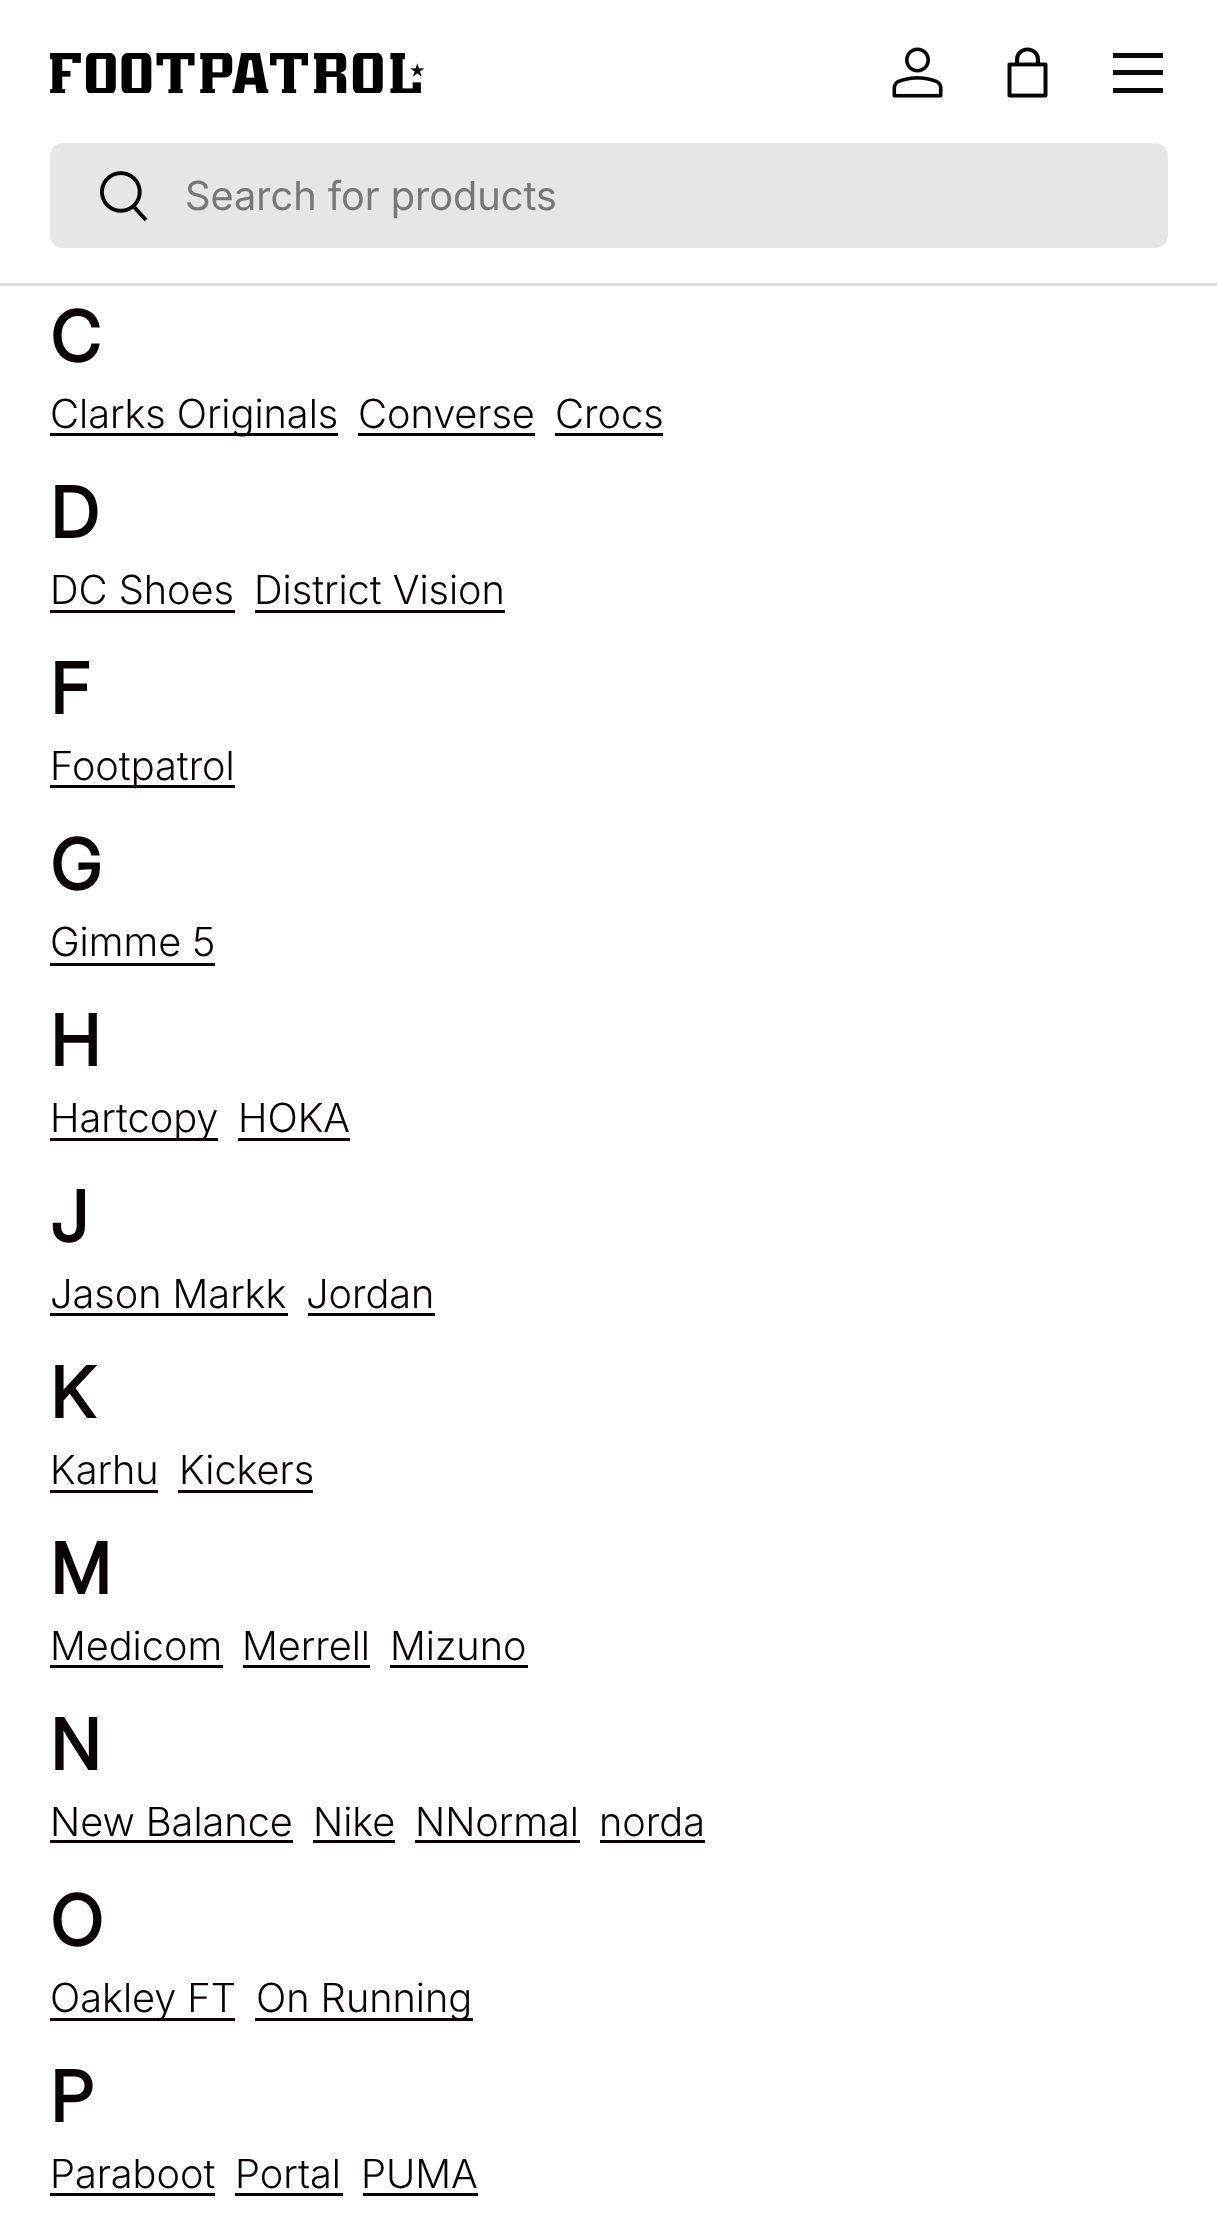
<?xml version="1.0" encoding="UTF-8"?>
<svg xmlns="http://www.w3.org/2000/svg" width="1217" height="2213">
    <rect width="100%" height="100%" fill="#FFFFFF"/>
    <rect x="0" y="283" width="1217" height="3" fill="#DADADA"/>
    <image x="50" y="53" width="374" height="40" href="img_01.png"/>
    <image x="892" y="47" width="51" height="51" href="img_02.png"/>
    <image x="1007" y="47" width="41" height="51" href="img_03.png"/>
    <rect x="1113" y="53" width="50" height="5" fill="#070707"/>
    <rect x="1113" y="88" width="50" height="5" fill="#070707"/>
    <rect x="1113" y="70" width="50" height="5" fill="#070707"/>
    <rect x="50" y="143" width="1118" height="105" rx="13" fill="#E6E6E6"/>
    <image x="100" y="171" width="48" height="51" href="img_04.png"/>
    <text x="185" y="210" font-family="Inter" font-size="40" fill="#777777">Search for products</text>
    <text x="50" y="362" font-family="Inter" font-size="70" font-weight="700" fill="#090302">C</text>
    <rect x="50" y="433" width="288" height="3" fill="#090302"/>
    <text x="50" y="428" font-family="Inter" font-size="40" font-weight="300" fill="#090302">Clarks Originals</text>
    <text x="358" y="428" font-family="Inter" font-size="40" font-weight="300" fill="#090302">Converse</text>
    <rect x="358" y="433" width="177" height="3" fill="#090302"/>
    <text x="555" y="428" font-family="Inter" font-size="40" font-weight="300" fill="#090302">Crocs</text>
    <rect x="555" y="433" width="108" height="3" fill="#090302"/>
    <text x="50" y="538" font-family="Inter" font-size="70" font-weight="700" fill="#090302">D</text>
    <text x="50" y="604" font-family="Inter" font-size="40" font-weight="300" fill="#090302">DC Shoes</text>
    <rect x="50" y="610" width="185" height="3" fill="#090302"/>
    <text x="254" y="604" font-family="Inter" font-size="40" font-weight="300" fill="#090302">District Vision</text>
    <rect x="255" y="610" width="250" height="3" fill="#090302"/>
    <text x="50" y="714" font-family="Inter" font-size="70" font-weight="700" fill="#090302">F</text>
    <rect x="50" y="785" width="185" height="3" fill="#090302"/>
    <text x="50" y="780" font-family="Inter" font-size="40" font-weight="300" fill="#090302">Footpatrol</text>
    <text x="50" y="890" font-family="Inter" font-size="70" font-weight="700" fill="#090302">G</text>
    <text x="50" y="956" font-family="Inter" font-size="40" font-weight="300" fill="#090302">Gimme 5</text>
    <rect x="50" y="963" width="165" height="3" fill="#090302"/>
    <text x="50" y="1066" font-family="Inter" font-size="70" font-weight="700" fill="#090302">H</text>
    <rect x="50" y="1138" width="168" height="3" fill="#090302"/>
    <text x="50" y="1132" font-family="Inter" font-size="40" font-weight="300" fill="#090302">Hartcopy</text>
    <text x="238" y="1132" font-family="Inter" font-size="40" font-weight="300" fill="#090302">HOKA</text>
    <rect x="238" y="1138" width="112" height="3" fill="#090302"/>
    <text x="50" y="1242" font-family="Inter" font-size="70" font-weight="700" fill="#090302">J</text>
    <text x="50" y="1308" font-family="Inter" font-size="40" font-weight="300" fill="#090302">Jason Markk</text>
    <rect x="50" y="1313" width="238" height="3" fill="#090302"/>
    <text x="306" y="1308" font-family="Inter" font-size="40" font-weight="300" fill="#090302">Jordan</text>
    <rect x="308" y="1313" width="127" height="3" fill="#090302"/>
    <text x="50" y="1418" font-family="Inter" font-size="70" font-weight="700" fill="#090302">K</text>
    <text x="50" y="1484" font-family="Inter" font-size="40" font-weight="300" fill="#090302">Karhu</text>
    <rect x="50" y="1490" width="108" height="3" fill="#090302"/>
    <text x="179" y="1484" font-family="Inter" font-size="40" font-weight="300" fill="#090302">Kickers</text>
    <rect x="178" y="1490" width="135" height="3" fill="#090302"/>
    <text x="50" y="1594" font-family="Inter" font-size="70" font-weight="700" fill="#090302">M</text>
    <text x="50" y="1660" font-family="Inter" font-size="40" font-weight="300" fill="#090302">Medicom</text>
    <rect x="50" y="1665" width="173" height="3" fill="#090302"/>
    <text x="242" y="1660" font-family="Inter" font-size="40" font-weight="300" fill="#090302">Merrell</text>
    <rect x="243" y="1665" width="127" height="3" fill="#090302"/>
    <text x="390" y="1660" font-family="Inter" font-size="40" font-weight="300" fill="#090302">Mizuno</text>
    <rect x="390" y="1665" width="138" height="3" fill="#090302"/>
    <text x="50" y="1770" font-family="Inter" font-size="70" font-weight="700" fill="#090302">N</text>
    <text x="50" y="1836" font-family="Inter" font-size="40" font-weight="300" fill="#090302">New Balance</text>
    <rect x="50" y="1840" width="243" height="3" fill="#090302"/>
    <text x="313" y="1836" font-family="Inter" font-size="40" font-weight="300" fill="#090302">Nike</text>
    <rect x="313" y="1840" width="82" height="3" fill="#090302"/>
    <text x="415" y="1836" font-family="Inter" font-size="40" font-weight="300" fill="#090302">NNormal</text>
    <rect x="415" y="1840" width="165" height="3" fill="#090302"/>
    <text x="599" y="1836" font-family="Inter" font-size="40" font-weight="300" fill="#090302">norda</text>
    <rect x="600" y="1840" width="105" height="3" fill="#090302"/>
    <text x="50" y="1946" font-family="Inter" font-size="70" font-weight="700" fill="#090302">O</text>
    <rect x="50" y="2018" width="185" height="3" fill="#090302"/>
    <text x="50" y="2012" font-family="Inter" font-size="40" font-weight="300" fill="#090302">Oakley FT</text>
    <rect x="255" y="2018" width="218" height="3" fill="#090302"/>
    <text x="256" y="2012" font-family="Inter" font-size="40" font-weight="300" fill="#090302">On Running</text>
    <text x="50" y="2122" font-family="Inter" font-size="70" font-weight="700" fill="#090302">P</text>
    <text x="50" y="2188" font-family="Inter" font-size="40" font-weight="300" fill="#090302">Paraboot</text>
    <rect x="50" y="2193" width="165" height="3" fill="#090302"/>
    <text x="235" y="2188" font-family="Inter" font-size="40" font-weight="300" fill="#090302">Portal</text>
    <rect x="235" y="2193" width="108" height="3" fill="#090302"/>
    <text x="361" y="2188" font-family="Inter" font-size="40" font-weight="300" fill="#090302">PUMA</text>
    <rect x="363" y="2193" width="115" height="3" fill="#090302"/>
</svg>
